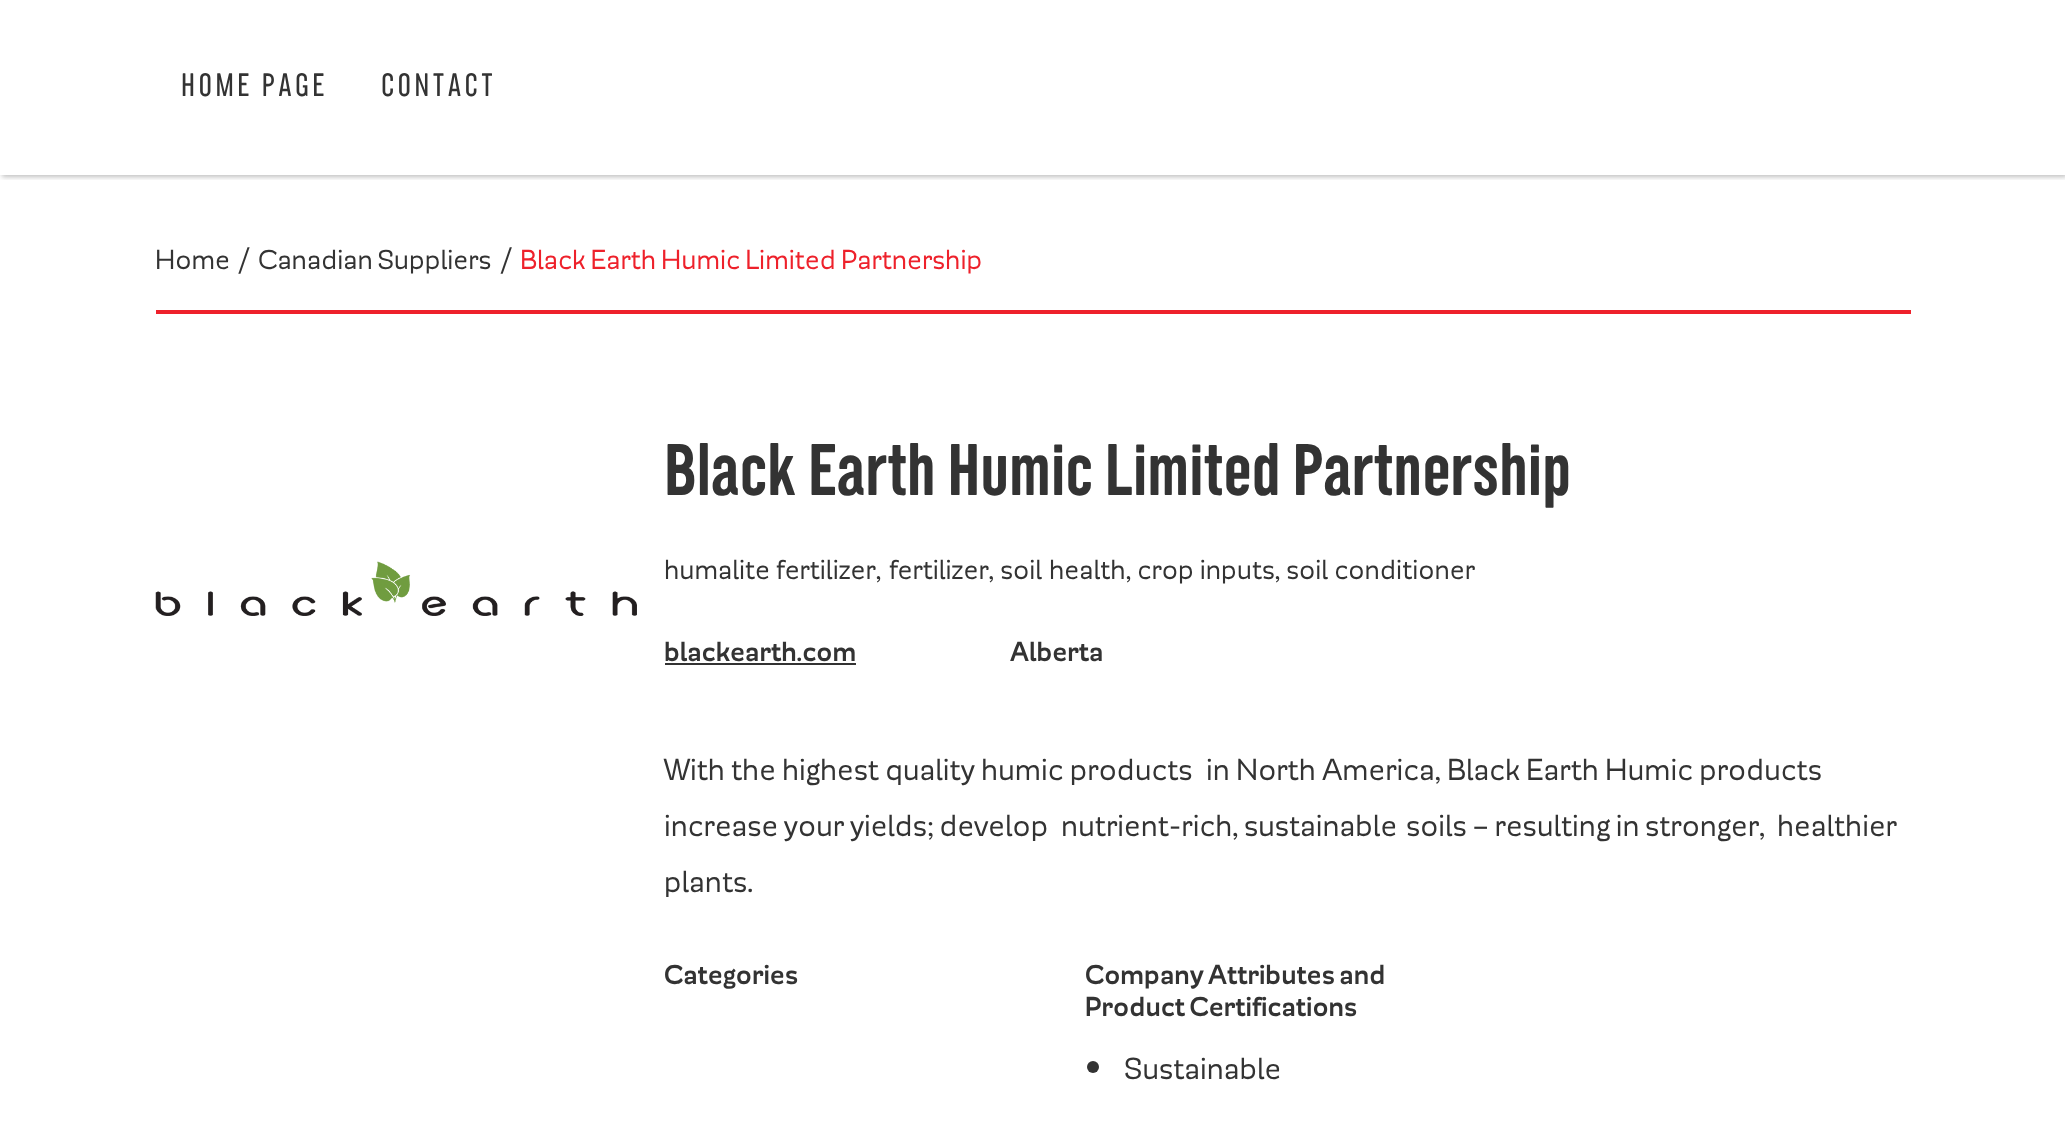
<?xml version="1.0" encoding="UTF-8"?>
<svg xmlns="http://www.w3.org/2000/svg" width="2065" height="1146">
    <style>*{font-kerning:none!important;font-variant-ligatures:none!important}</style>
    <defs>
        <clipPath id="clip1"><rect x="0" y="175" width="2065" height="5"/></clipPath>
        <filter id="blur1" x="-50%" y="-200%" width="200%" height="500%"><feGaussianBlur stdDeviation="2.5"/></filter>
    </defs>
    <rect width="100%" height="100%" fill="#FFFFFF"/>
    <g clip-path="url(#clip1)">
        <rect x="2" y="2" width="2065" height="175" fill="#000000" fill-opacity="0.25" filter="url(#blur1)"/>
    </g>
    <text x="181" y="96" font-family="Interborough" font-size="35" letter-spacing="3.5" fill="#333333">HOME PAGE</text>
    <text x="381" y="96" font-family="Interborough" font-size="35" letter-spacing="3.5" fill="#333333">CONTACT</text>
    <rect x="156" y="310" width="1755" height="4" fill="#EE212B"/>
    <text x="155" y="269" font-family="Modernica" font-size="31.5" fill="#333333">Home /</text>
    <text x="258" y="269" word-spacing="-2" font-family="Modernica" font-size="31.5" fill="#333333">Canadian Suppliers</text>
    <text x="499" y="269" font-family="Modernica" font-size="31.5" fill="#333333">/</text>
    <text x="520" y="269" word-spacing="-1.5" font-family="Modernica" font-size="31.5" fill="#EE212B">Black Earth Humic Limited Partnership</text>
    <image x="155" y="561" width="482" height="55" href="img_01.png"/>
    <text x="664" y="495" font-family="Interborough" font-size="78.75" font-weight="700" fill="#333333">Black Earth Humic Limited Partnership</text>
    <text x="664" y="579" word-spacing="-0.5" font-family="Modernica" font-size="31.5" fill="#333333">humalite fertilizer,</text>
    <text x="889" y="579" word-spacing="-0.5" font-family="Modernica" font-size="31.5" fill="#333333">fertilizer, soil</text>
    <text x="1049" y="579" word-spacing="-0.5" font-family="Modernica" font-size="31.5" fill="#333333">health, crop inputs, soil conditioner</text>
    <text x="664" y="661" font-family="Modernica" font-size="31.5" font-weight="700" fill="#333333">blackearth.com</text>
    <rect x="665" y="663" width="191" height="2" fill="#333333"/>
    <text x="1010" y="661" font-family="Modernica" font-size="31.5" font-weight="700" fill="#333333">Alberta</text>
    <text x="664" y="780" word-spacing="-1.1" font-family="Modernica" font-size="35" fill="#333333">With the highest quality humic products</text>
    <text x="1206" y="780" word-spacing="-1.1" font-family="Modernica" font-size="35" fill="#333333">in North America, Black Earth Humic products</text>
    <text x="664" y="836" word-spacing="-1.75" font-family="Modernica" font-size="35" fill="#333333">increase your yields; develop</text>
    <text x="1061" y="836" word-spacing="-1.75" font-family="Modernica" font-size="35" fill="#333333">nutrient-rich, sustainable</text>
    <text x="1406" y="836" word-spacing="-1.75" font-family="Modernica" font-size="35" fill="#333333">soils – resulting in stronger,</text>
    <text x="1777" y="836" word-spacing="-1.75" font-family="Modernica" font-size="35" fill="#333333">healthier</text>
    <text x="664" y="892" font-family="Modernica" font-size="35" fill="#333333">plants.</text>
    <text x="664" y="984" font-family="Modernica" font-size="31.5" font-weight="700" fill="#333333">Categories</text>
    <text font-family="Modernica" font-size="31.5" font-weight="700" fill="#333333">
        <tspan x="1085" y="984" word-spacing="-2">Company Attributes and</tspan>
        <tspan x="1085" y="1016" word-spacing="-2">Product Certifications</tspan>
    </text>
    <circle cx="1093" cy="1067" r="6" fill="#333333"/>
    <text x="1124" y="1079" font-family="Modernica" font-size="35" fill="#333333">Sustainable</text>
</svg>
